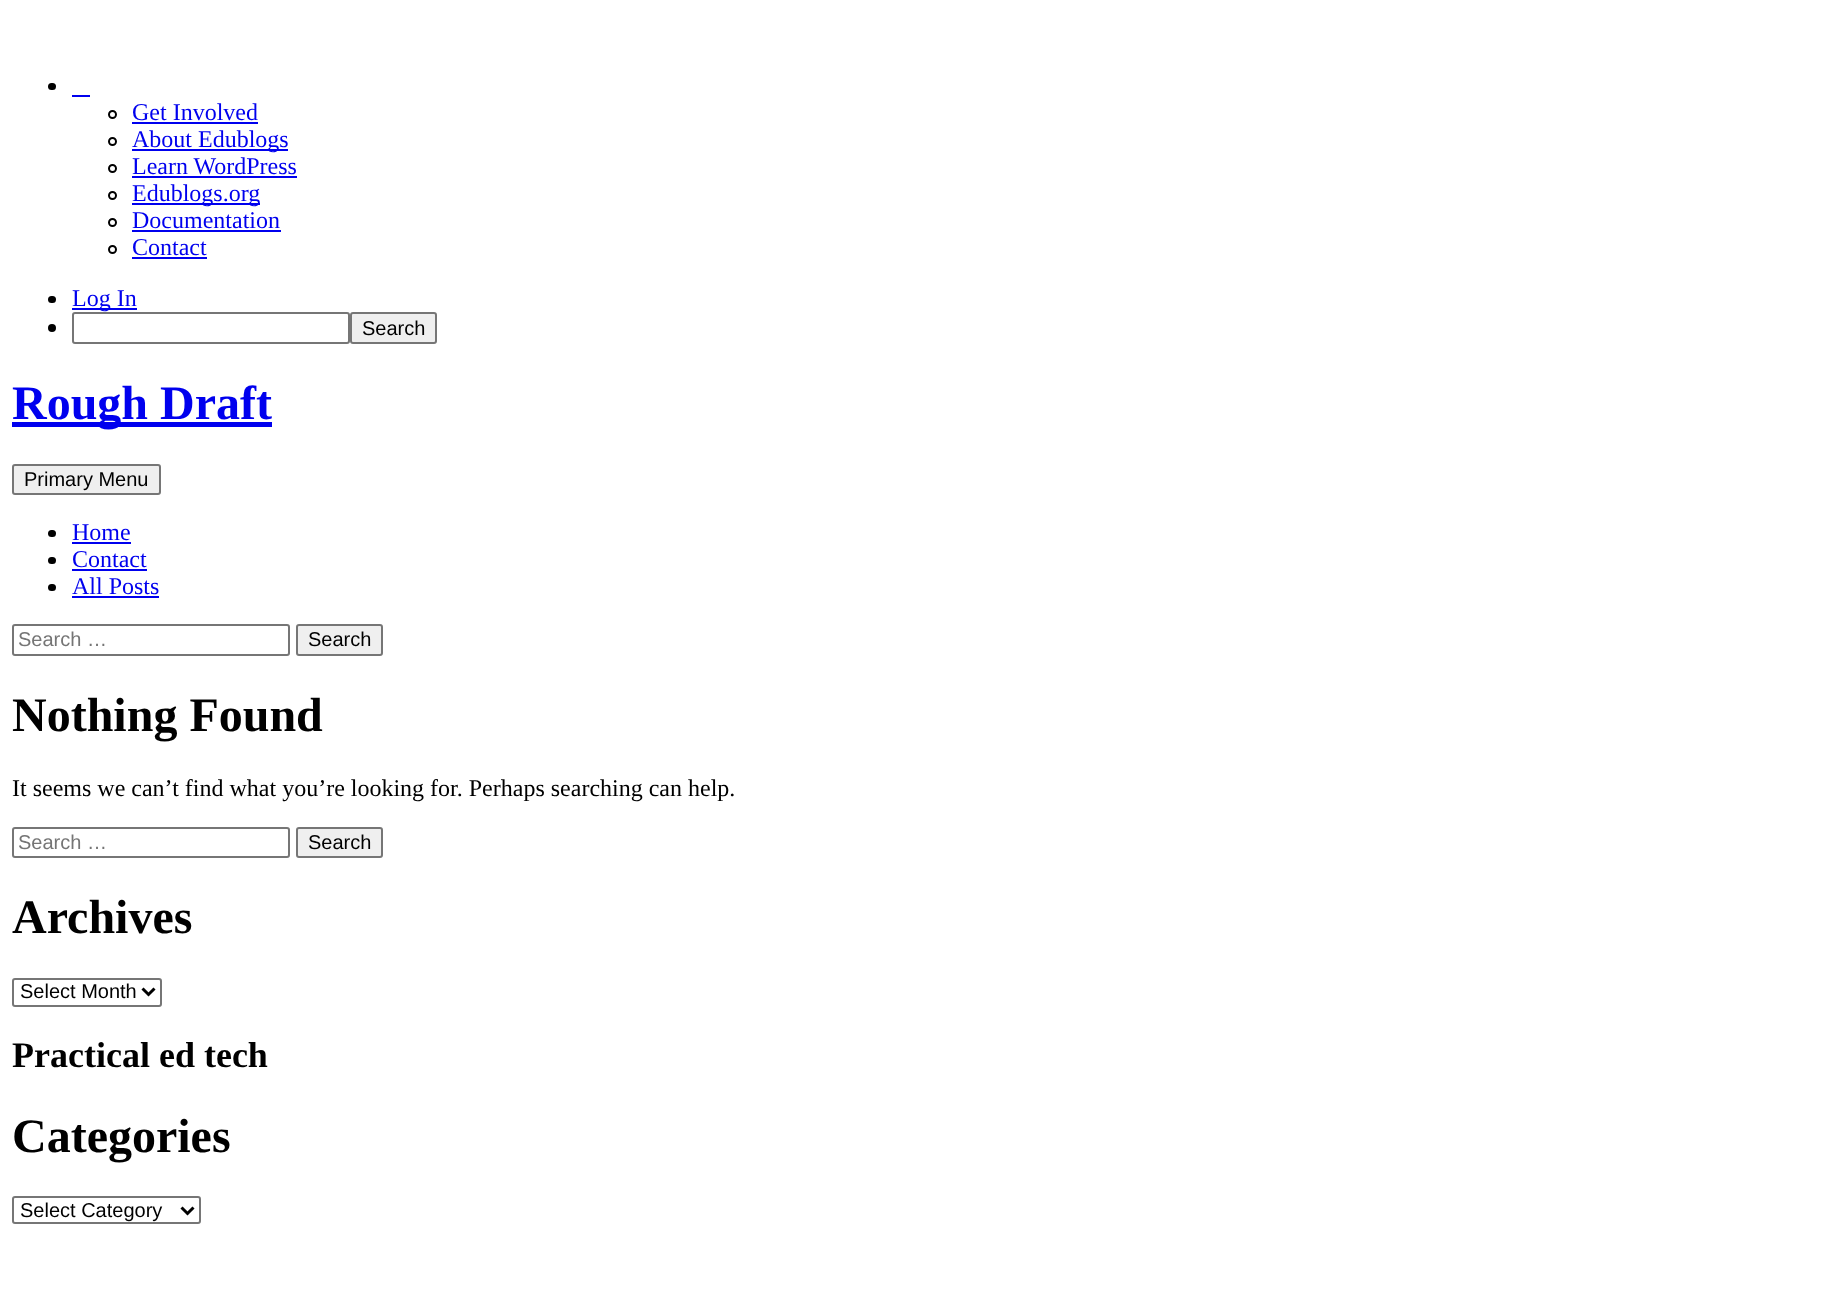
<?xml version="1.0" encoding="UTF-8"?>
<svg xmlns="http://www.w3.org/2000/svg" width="1848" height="1295">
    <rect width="100%" height="100%" fill="#FFFFFF"/>
    <rect x="48" y="83" width="8" height="7" rx="3.5" fill="#000000"/>
    <rect x="72" y="95" width="18" height="2" fill="#0000EE"/>
    <circle cx="112.5" cy="114.5" r="3.5" fill="none" stroke="#000000" stroke-width="2"/>
    <text x="132" y="120" font-family="Liberation Serif" font-size="24" fill="#0000EE">Get Involved</text>
    <rect x="132" y="122" width="126" height="2" fill="#0000EE"/>
    <circle cx="112.5" cy="141.5" r="3.5" fill="none" stroke="#000000" stroke-width="2"/>
    <rect x="132" y="149" width="156" height="2" fill="#0000EE"/>
    <text x="132" y="147" font-family="Liberation Serif" font-size="24" fill="#0000EE">About Edublogs</text>
    <circle cx="112.5" cy="168.5" r="3.5" fill="none" stroke="#000000" stroke-width="2"/>
    <text x="132" y="174" font-family="Liberation Serif" font-size="24" fill="#0000EE">Learn WordPress</text>
    <rect x="132" y="176" width="165" height="2" fill="#0000EE"/>
    <circle cx="112.5" cy="195.5" r="3.5" fill="none" stroke="#000000" stroke-width="2"/>
    <rect x="132" y="203" width="128" height="2" fill="#0000EE"/>
    <text x="132" y="201" font-family="Liberation Serif" font-size="24" fill="#0000EE">Edublogs.org</text>
    <circle cx="112.5" cy="222.5" r="3.5" fill="none" stroke="#000000" stroke-width="2"/>
    <text x="132" y="228" font-family="Liberation Serif" font-size="24" fill="#0000EE">Documentation</text>
    <rect x="132" y="230" width="149" height="2" fill="#0000EE"/>
    <circle cx="112.5" cy="249.5" r="3.5" fill="none" stroke="#000000" stroke-width="2"/>
    <text x="132" y="255" font-family="Liberation Serif" font-size="24" fill="#0000EE">Contact</text>
    <rect x="132" y="257" width="75" height="2" fill="#0000EE"/>
    <rect x="48" y="296" width="8" height="7" rx="3.5" fill="#000000"/>
    <rect x="72" y="308" width="65" height="2" fill="#0000EE"/>
    <text x="72" y="306" font-family="Liberation Serif" font-size="24" fill="#0000EE">Log In</text>
    <circle cx="52" cy="328" r="4" fill="#000000"/>
    <rect x="73" y="313" width="276" height="30" rx="2" fill="none" stroke="#767676" stroke-width="2"/>
    <rect x="351" y="313" width="85" height="30" rx="2" fill="#EFEFEF" stroke="#767676" stroke-width="2"/>
    <text x="362" y="335" font-family="Liberation Sans" font-size="20" fill="#000000">Search</text>
    <rect x="12" y="422" width="260" height="5" fill="#0000EE"/>
    <text x="12" y="419" font-family="Liberation Serif" font-size="48" font-weight="700" fill="#0000EE">Rough Draft</text>
    <rect x="13" y="465" width="147" height="29" rx="2" fill="#EFEFEF" stroke="#767676" stroke-width="2"/>
    <text x="24" y="486" font-family="Liberation Sans" font-size="20" fill="#000000">Primary Menu</text>
    <rect x="48" y="530" width="8" height="7" rx="3.5" fill="#000000"/>
    <text x="72" y="540" font-family="Liberation Serif" font-size="24" fill="#0000EE">Home</text>
    <rect x="72" y="542" width="59" height="2" fill="#0000EE"/>
    <rect x="48" y="557" width="8" height="7" rx="3.5" fill="#000000"/>
    <text x="72" y="567" font-family="Liberation Serif" font-size="24" fill="#0000EE">Contact</text>
    <rect x="72" y="569" width="75" height="2" fill="#0000EE"/>
    <rect x="48" y="584" width="8" height="7" rx="3.5" fill="#000000"/>
    <text x="72" y="594" font-family="Liberation Serif" font-size="24" fill="#0000EE">All Posts</text>
    <rect x="72" y="596" width="87" height="2" fill="#0000EE"/>
    <rect x="13" y="625" width="276" height="30" rx="2" fill="none" stroke="#767676" stroke-width="2"/>
    <text x="18" y="646" font-family="Liberation Sans" font-size="20" fill="#757575">Search …</text>
    <rect x="297" y="625" width="85" height="30" rx="2" fill="#EFEFEF" stroke="#767676" stroke-width="2"/>
    <text x="308" y="646" font-family="Liberation Sans" font-size="20" fill="#000000">Search</text>
    <text x="12" y="731" font-family="Liberation Serif" font-size="48" font-weight="700" fill="#000000">Nothing Found</text>
    <text x="12" y="796" font-family="Liberation Serif" font-size="24" fill="#000000">It seems we can’t find what you’re looking for. Perhaps searching can help.</text>
    <rect x="13" y="828" width="276" height="29" rx="2" fill="none" stroke="#767676" stroke-width="2"/>
    <text x="18" y="849" font-family="Liberation Sans" font-size="20" fill="#757575">Search …</text>
    <rect x="297" y="828" width="85" height="29" rx="2" fill="#EFEFEF" stroke="#767676" stroke-width="2"/>
    <text x="308" y="849" font-family="Liberation Sans" font-size="20" fill="#000000">Search</text>
    <text x="12" y="933" font-family="Liberation Serif" font-size="48" font-weight="700" fill="#000000">Archives</text>
    <rect x="13" y="979" width="148" height="27" rx="2" fill="none" stroke="#767676" stroke-width="2"/>
    <path d="M 142.5 988.5 L 148.5 994.5 L 154.5 988.5" fill="none" stroke="#000000" stroke-width="3"/>
    <text x="20" y="998" font-family="Liberation Sans" font-size="20" fill="#000000">Select Month</text>
    <text x="12" y="1067" font-family="Liberation Serif" font-size="36" font-weight="700" fill="#000000">Practical ed tech</text>
    <text x="12" y="1152" font-family="Liberation Serif" font-size="48" font-weight="700" fill="#000000">Categories</text>
    <rect x="13" y="1197" width="187" height="26" rx="2" fill="none" stroke="#767676" stroke-width="2"/>
    <path d="M 181.5 1207.5 L 187.5 1213.5 L 193.5 1207.5" fill="none" stroke="#000000" stroke-width="3"/>
    <text x="20" y="1217" font-family="Liberation Sans" font-size="20" fill="#000000">Select Category</text>
</svg>
